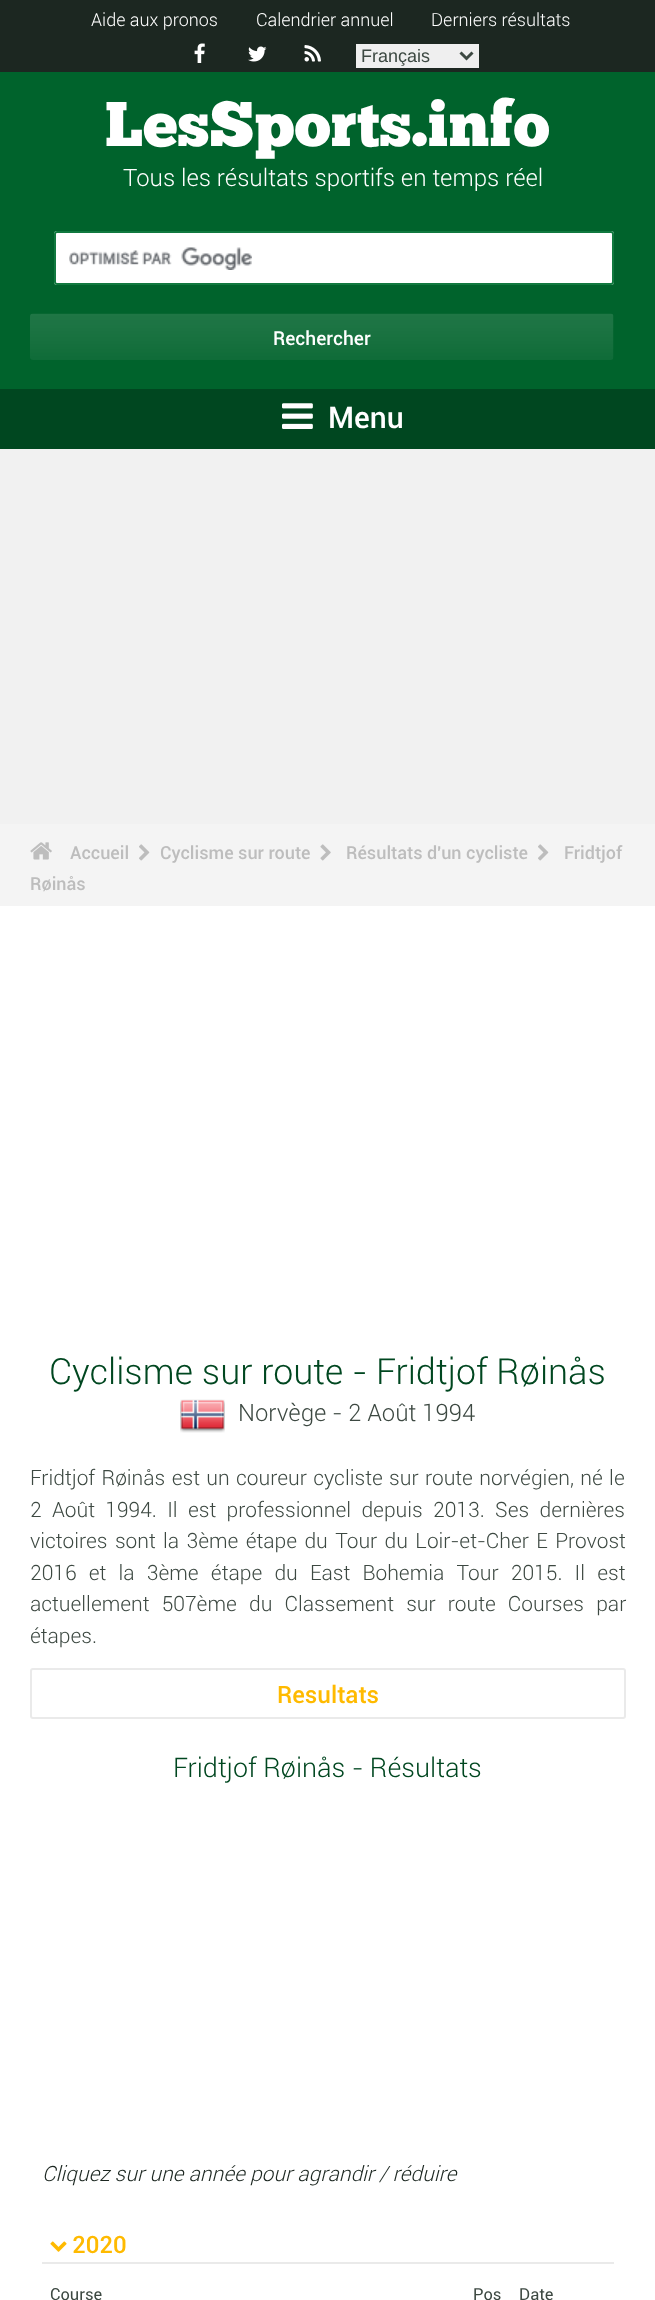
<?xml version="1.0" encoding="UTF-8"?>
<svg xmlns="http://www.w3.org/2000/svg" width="655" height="2300">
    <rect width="100%" height="100%" fill="#F1F1F1"/>
    <rect x="0" y="0" width="655" height="72" fill="#1C2721"/>
    <text x="91" y="26" font-family="Roboto" font-size="18" font-weight="300" fill="#FFFFFF">Aide aux pronos</text>
    <text x="256" y="26" font-family="Roboto" font-size="18" font-weight="300" fill="#FFFFFF">Calendrier annuel</text>
    <text x="431" y="26" font-family="Roboto" font-size="18" font-weight="300" fill="#FFFFFF">Derniers résultats</text>
    <image x="194" y="43" width="11" height="20" href="img_01.png"/>
    <image x="248" y="46" width="19" height="16" href="img_02.png"/>
    <image x="304" y="45" width="17" height="17" href="img_03.png"/>
    <rect x="356" y="44" width="123" height="24" fill="#EFEFEF"/>
    <path d="M 460.5 52.5 L 466.5 58.5 L 472.5 52.5" fill="none" stroke="#3D4942" stroke-width="3"/>
    <text x="361" y="62" font-family="Liberation Sans" font-size="18" fill="#3D4942">Français</text>
    <rect x="0" y="72" width="655" height="317" fill="#00632C"/>
    <text x="105" y="146" font-family="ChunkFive" font-size="63" fill="#FFFFFF">LesSports.info</text>
    <text x="123" y="186" font-family="Roboto" font-size="24" font-weight="300" fill="#FFFFFF">Tous les résultats sportifs en temps réel</text>
    <rect x="54" y="231" width="560" height="54" rx="3" fill="#FFFFFF"/>
    <image x="69" y="247" width="183" height="23" href="img_04.png"/>
    <rect x="55" y="232" width="558" height="52" rx="2" fill="none" stroke="#11793F" stroke-width="2"/>
    <image x="30" y="313" width="584" height="47" href="img_05.png"/>
    <text x="273" y="345" font-family="Roboto" font-size="19.25" font-weight="500" fill="#FFFFFF">Rechercher</text>
    <rect x="0" y="389" width="655" height="60" fill="#004720"/>
    <image x="282" y="403" width="31" height="26" href="img_06.png"/>
    <text x="328" y="428" font-family="Roboto" font-size="30" font-weight="500" fill="#FFFFFF">Menu</text>
    <rect x="0" y="824" width="655" height="82" fill="#F4F4F4"/>
    <image x="30" y="842" width="22" height="18" href="img_07.png"/>
    <text x="70" y="859" font-family="Roboto" font-size="18" font-weight="500" fill="#BDBDBD">Accueil</text>
    <image x="139" y="844" width="11" height="17" href="img_08.png"/>
    <text x="160" y="859" font-family="Roboto" font-size="18" font-weight="500" fill="#BDBDBD">Cyclisme sur route</text>
    <image x="320" y="844" width="11" height="17" href="img_09.png"/>
    <text x="346" y="859" font-family="Roboto" font-size="18" font-weight="500" fill="#BDBDBD">Résultats d'un cycliste</text>
    <image x="538" y="844" width="11" height="17" href="img_08.png"/>
    <text x="564" y="859" font-family="Roboto" font-size="18" font-weight="500" fill="#BDBDBD">Fridtjof</text>
    <text x="30" y="890" font-family="Roboto" font-size="18" font-weight="500" fill="#BDBDBD">Røinås</text>
    <rect x="0" y="906" width="655" height="1394" fill="#FFFFFF"/>
    <text x="49" y="1384" font-family="Roboto" font-size="36" font-weight="300" fill="#004720">Cyclisme sur route - Fridtjof Røinås</text>
    <image x="180" y="1399" width="45" height="34" href="img_10.png"/>
    <text x="238" y="1421" font-family="Roboto" font-size="24" font-weight="300" fill="#3D4942">Norvège - 2 Août 1994</text>
    <text font-family="Roboto" font-size="21" font-weight="300" fill="#3D4942">
        <tspan x="30" y="1485" word-spacing="1.25">Fridtjof Røinås est un coureur cycliste sur route norvégien, né le</tspan>
        <tspan x="30" y="1517" word-spacing="5.25">2 Août 1994. Il est professionnel depuis 2013. Ses dernières</tspan>
        <tspan x="30" y="1548" word-spacing="2.25">victoires sont la 3ème étape du Tour du Loir-et-Cher E Provost</tspan>
        <tspan x="30" y="1580" word-spacing="7.1">2016 et la 3ème étape du East Bohemia Tour 2015. Il est</tspan>
        <tspan x="30" y="1611" word-spacing="7">actuellement 507ème</tspan>
    </text>
    <text x="249" y="1611" word-spacing="7" font-family="Roboto" font-size="21" font-weight="300" fill="#3D4942">du Classement sur route Courses par</text>
    <text x="30" y="1643" font-family="Roboto" font-size="21" font-weight="300" fill="#3D4942">étapes.</text>
    <rect x="31" y="1669" width="594" height="49" rx="2" fill="none" stroke="#EAEAEA" stroke-width="2"/>
    <text x="277" y="1703" font-family="Roboto" font-size="24" font-weight="500" fill="#FFBA00">Resultats</text>
    <text x="173" y="1777" font-family="Roboto" font-size="27" font-weight="300" fill="#004720">Fridtjof Røinås - Résultats</text>
    <text x="42" y="2181" font-family="Roboto" font-size="21" font-weight="300" font-style="italic" fill="#1C2721">Cliquez sur une année pour agrandir / réduire</text>
    <image x="50" y="2241" width="17" height="11" href="img_11.png"/>
    <text x="72" y="2253" font-family="Roboto" font-size="24" font-weight="500" fill="#FFBA00">2020</text>
    <rect x="42" y="2262" width="572" height="2" fill="#EAEAEA"/>
    <text x="50" y="2300" font-family="Roboto" font-size="16.5" fill="#3D4942">Course</text>
    <text x="473" y="2300" font-family="Roboto" font-size="16.5" fill="#3D4942">Pos</text>
    <text x="519" y="2300" font-family="Roboto" font-size="16.5" fill="#3D4942">Date</text>
</svg>
